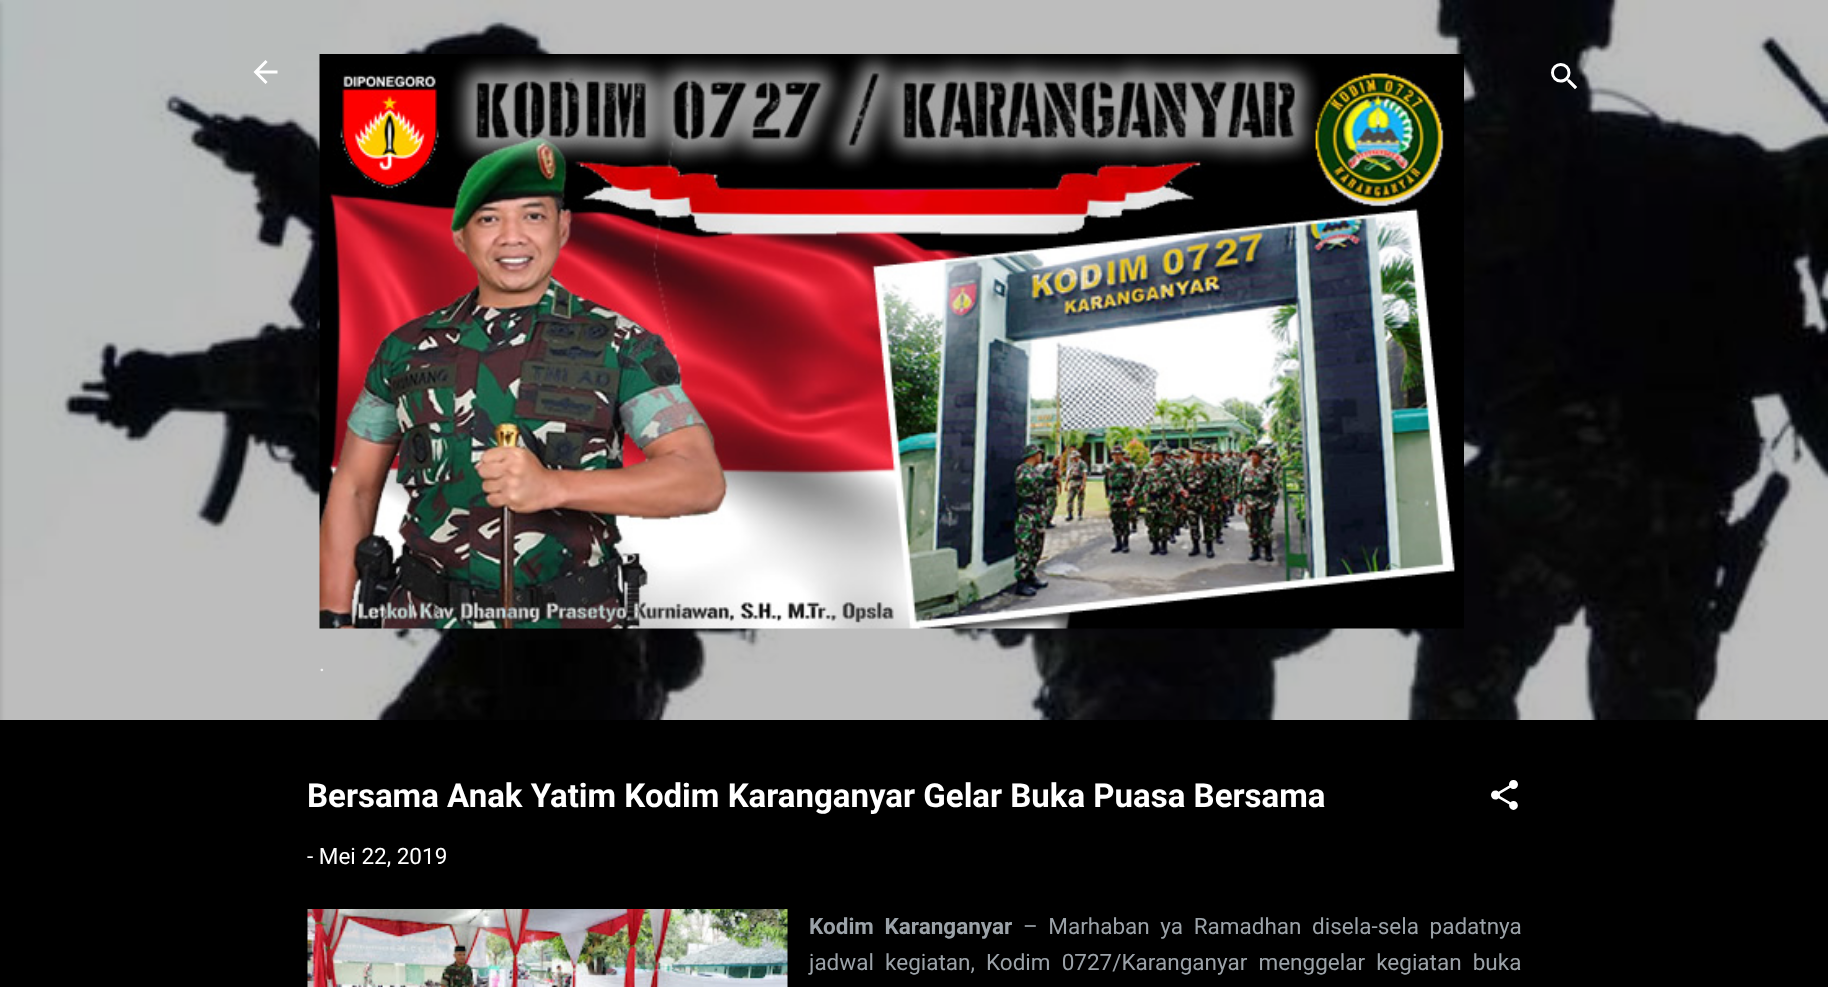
<?xml version="1.0" encoding="UTF-8"?>
<svg xmlns="http://www.w3.org/2000/svg" width="1828" height="987">
    <defs>
        <filter id="blur1" x="-50%" y="-200%" width="200%" height="500%"><feGaussianBlur stdDeviation="2"/></filter>
    </defs>
    <rect width="100%" height="100%" fill="#000000"/>
    <image x="0" y="0" width="1828" height="720" href="img_01.png"/>
    <rect x="-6" y="2" width="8" height="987" fill="#000000" fill-opacity="0.1" filter="url(#blur1)"/>
    <image x="253" y="60" width="25" height="24" href="img_02.png"/>
    <image x="1551" y="63" width="26" height="27" href="img_03.png"/>
    <image x="319" y="54" width="1145" height="575" href="img_04.png"/>
    <text x="319" y="671" font-family="Roboto" font-size="22.5" fill="#F2F2F2">.</text>
    <text x="307" y="807" font-family="Roboto" font-size="33" font-weight="700" fill="#FFFFFF">Bersama Anak Yatim Kodim Karanganyar Gelar Buka Puasa Bersama</text>
    <image x="1491" y="780" width="27" height="30" href="img_05.png"/>
    <text x="307" y="864" font-family="Roboto" font-size="22.5" fill="#FFFFFF">- Mei 22, 2019</text>
    <image x="307" y="909" width="481" height="78" href="img_06.png"/>
    <text x="809" y="934" word-spacing="5" font-family="Roboto" font-size="22.5" font-weight="700" fill="#9BA2A8">Kodim Karanganyar</text>
    <text x="1023" y="934" word-spacing="5" font-family="Roboto" font-size="22.5" fill="#9BA2A8">– Marhaban ya Ramadhan disela-sela padatnya</text>
    <text x="809" y="970" word-spacing="5.5" font-family="Roboto" font-size="22.5" fill="#9BA2A8">jadwal kegiatan, Kodim 0727/Karanganyar menggelar kegiatan buka</text>
</svg>
